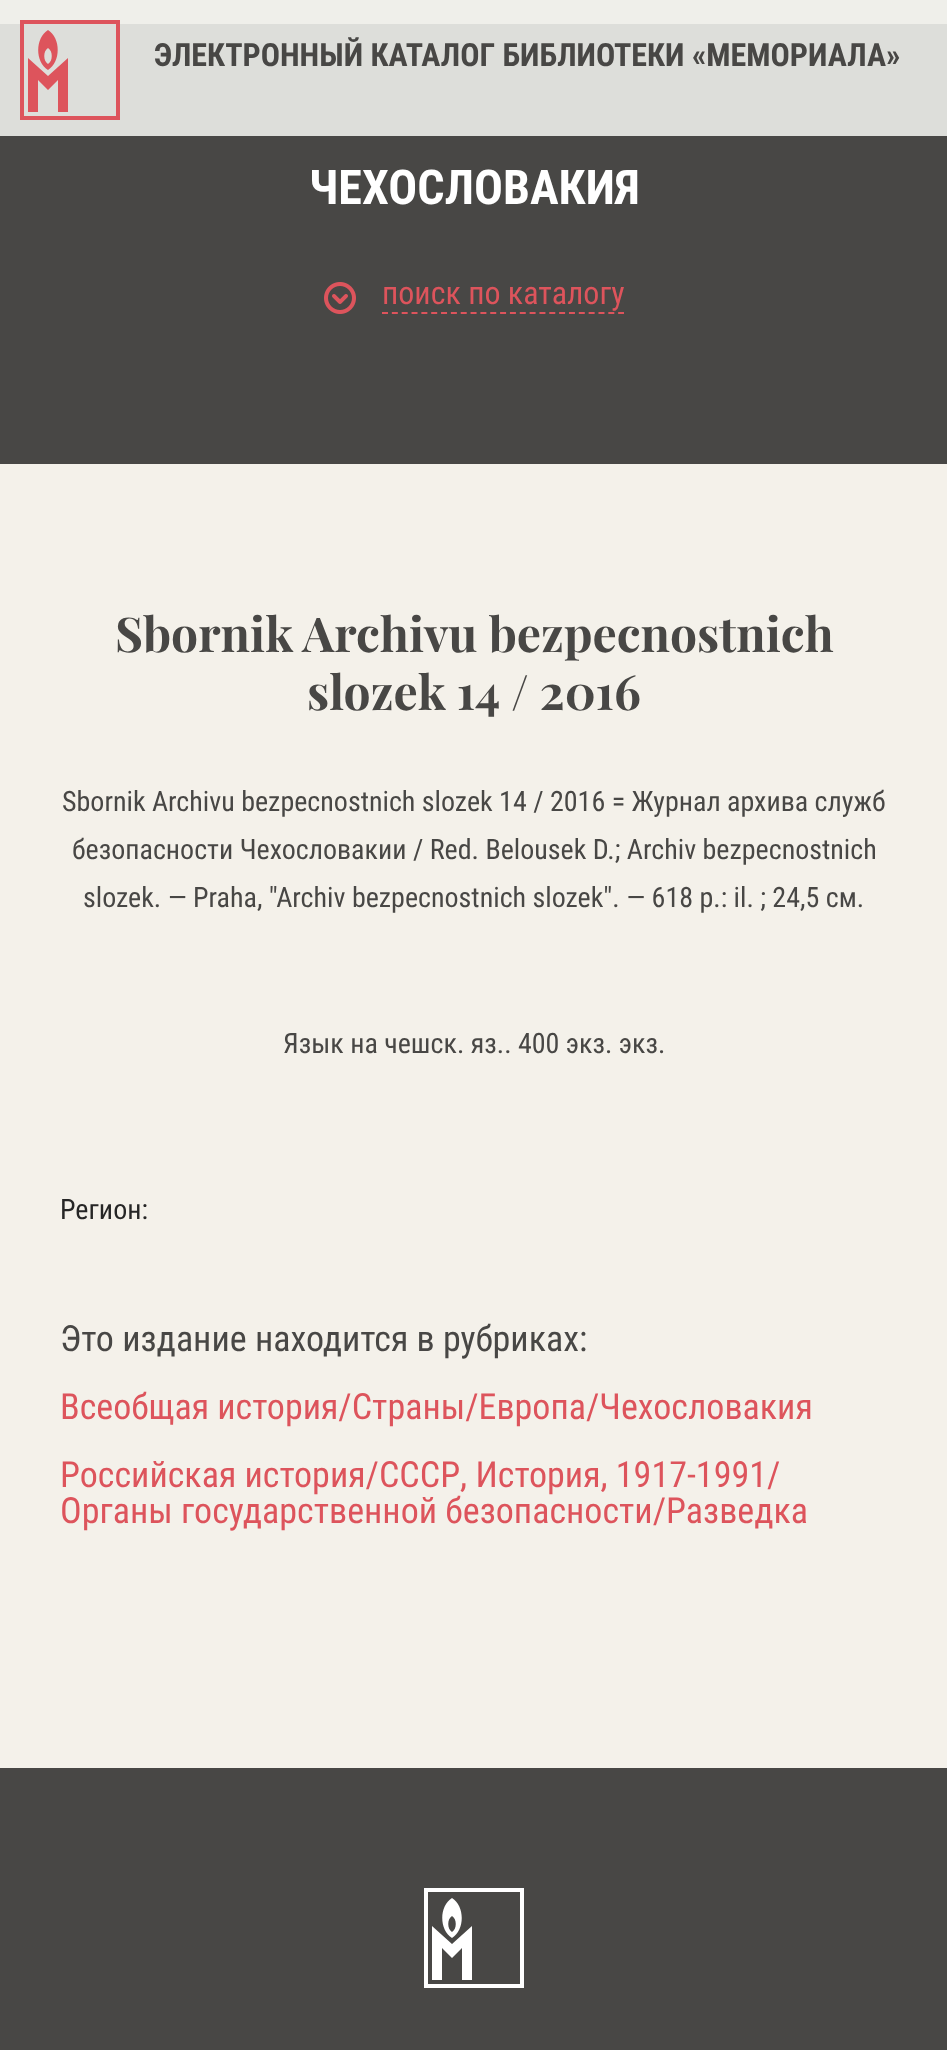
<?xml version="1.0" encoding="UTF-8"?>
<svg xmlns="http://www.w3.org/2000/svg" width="947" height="2050">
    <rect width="100%" height="100%" fill="#F4F1EA"/>
    <rect x="0" y="0" width="947" height="24" fill="#EFEFEA"/>
    <rect x="0" y="24" width="947" height="112" fill="#DDDEDA"/>
    <path d="M 20 120 V 20 H 120 V 120 Z M 116 24 H 24 V 116 H 116 Z M 68 58 V 112 H 58 V 80 L 48 90 L 38 80 V 112 H 28 V 58 L 48 76 Z M 48 70 C 35 62 35 38 48 30 C 61 38 61 62 48 70 Z M 48 48 C 43 51 43 61 48 64 C 53 61 53 51 48 48 Z" fill="#DD545C" fill-rule="evenodd"/>
    <text x="154" y="66" font-family="Roboto Condensed" font-size="32" font-weight="700" fill="#484745">ЭЛЕКТРОННЫЙ КАТАЛОГ БИБЛИОТЕКИ «МЕМОРИАЛА»</text>
    <rect x="0" y="136" width="947" height="328" fill="#484745"/>
    <text x="309" y="204" font-family="Roboto Condensed" font-size="48" font-weight="700" fill="#FFFFFF">ЧЕХОСЛОВАКИЯ</text>
    <image x="324" y="282" width="32" height="32" href="img_01.png"/>
    <text x="382" y="304" font-family="Roboto Condensed" font-size="32" fill="#DD545C">поиск по каталогу</text>
    <path d="M 382 313 H 624" fill="none" stroke="#DD545C" stroke-width="2" stroke-dasharray="6 3.84"/>
    <text x="115" y="652" font-family="Playfair Display" font-size="48" font-weight="700" fill="#484745">Sbornik Archivu bezpecnostnich</text>
    <text x="307" y="710" font-family="Playfair Display" font-size="48" font-weight="700" fill="#484745">slozek 14 / 2016</text>
    <text x="62" y="811" font-family="Roboto Condensed" font-size="28" fill="#484745">Sbornik Archivu bezpecnostnich slozek 14 / 2016 = Журнал архива служб</text>
    <text x="72" y="859" font-family="Roboto Condensed" font-size="28" fill="#484745">безопасности Чехословакии / Red. Belousek D.; Archiv bezpecnostnich</text>
    <text x="83" y="907" font-family="Roboto Condensed" font-size="28" fill="#484745">slozek. — Praha, "Archiv bezpecnostnich slozek". — 618 p.: il. ; 24,5 см.</text>
    <text x="283" y="1053" font-family="Roboto Condensed" font-size="28" fill="#484745">Язык на чешск. яз.. 400 экз. экз.</text>
    <text x="60" y="1219" font-family="Roboto Condensed" font-size="28" fill="#262626">Регион:</text>
    <text x="60" y="1351" font-family="Roboto Condensed" font-size="36" fill="#484745">Это издание находится в рубриках:</text>
    <text font-family="Roboto Condensed" font-size="36" fill="#DD545C">
        <tspan x="60" y="1419">Всеобщая история/Страны/Европа/Чехословакия</tspan>
        <tspan x="60" y="1487">Российская история/СССР, История, 1917-1991/</tspan>
        <tspan x="60" y="1523">Органы государственной безопасности/Разведка</tspan>
    </text>
    <rect x="0" y="1768" width="947" height="282" fill="#484745"/>
    <path d="M 424 1988 V 1888 H 524 V 1988 Z M 520 1892 H 428 V 1984 H 520 Z M 472 1926 V 1980 H 462 V 1948 L 452 1958 L 442 1948 V 1980 H 432 V 1926 L 452 1944 Z M 452 1938 C 439 1930 439 1906 452 1898 C 465 1906 465 1930 452 1938 Z M 452 1916 C 447 1919 447 1929 452 1932 C 457 1929 457 1919 452 1916 Z" fill="#FFFFFF" fill-rule="evenodd"/>
</svg>
